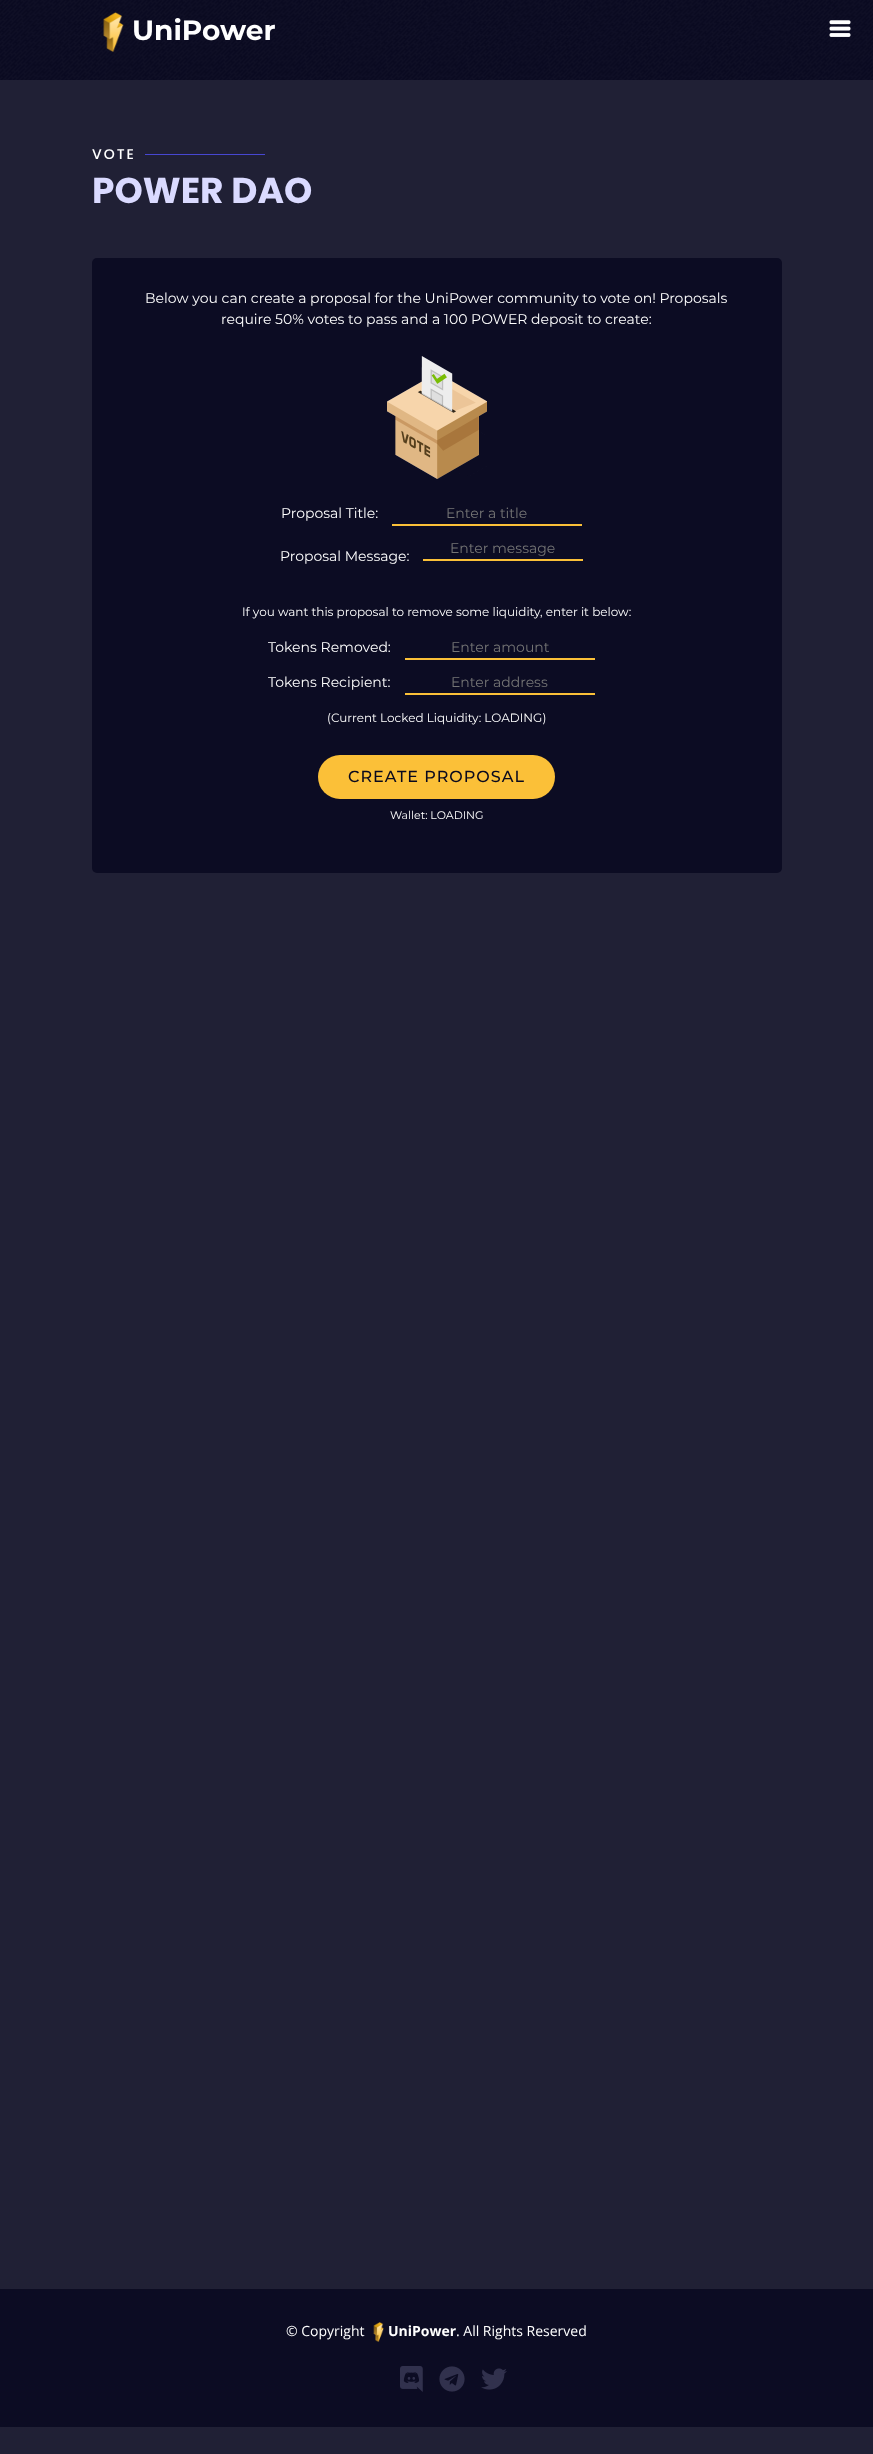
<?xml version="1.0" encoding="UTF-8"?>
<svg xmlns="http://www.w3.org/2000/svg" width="873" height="2454">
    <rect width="100%" height="100%" fill="#202035"/>
    <image x="0" y="0" width="873" height="80" href="img_01.png"/>
    <image x="103" y="12" width="21" height="40" href="img_02.png"/>
    <text x="132" y="40" font-family="Montserrat" font-size="28" font-weight="700" fill="#FFFFFF">UniPower</text>
    <image x="829" y="20" width="22" height="17" href="img_03.png"/>
    <text x="92" y="159" font-family="Poppins" font-size="14" font-weight="500" letter-spacing="2" fill="#FFFFFF">VOTE</text>
    <rect x="145" y="154" width="120" height="1" fill="#4747D1"/>
    <text x="92" y="203" font-family="Poppins" font-size="36" font-weight="700" fill="#DADAFF">POWER DAO</text>
    <rect x="92" y="258" width="690" height="615" rx="5" fill="#0C0C23"/>
    <text x="145" y="303" font-family="Montserrat" font-size="14" fill="#FFFFFF">Below you can create a proposal for the UniPower community to vote on! Proposals</text>
    <text x="221" y="324" font-family="Montserrat" font-size="14" fill="#FFFFFF">require 50% votes to pass and a 100 POWER deposit to create:</text>
    <image x="387" y="356" width="100" height="123" href="img_04.png"/>
    <text x="281" y="518" font-family="Montserrat" font-size="14" fill="#FFFFFF">Proposal Title:</text>
    <rect x="392" y="524" width="190" height="2" fill="#FBC038"/>
    <text x="446" y="518" font-family="Montserrat" font-size="14" fill="#757575">Enter a title</text>
    <text x="280" y="561" font-family="Montserrat" font-size="14" fill="#FFFFFF">Proposal Message:</text>
    <rect x="423" y="559" width="160" height="2" fill="#FBC038"/>
    <text x="450" y="553" font-family="Montserrat" font-size="14" fill="#757575">Enter message</text>
    <text x="242" y="616" font-family="Montserrat" font-size="12" fill="#FFFFFF">If you want this proposal to remove some liquidity, enter it below:</text>
    <text x="268" y="652" font-family="Montserrat" font-size="14" fill="#FFFFFF">Tokens Removed:</text>
    <rect x="405" y="658" width="190" height="2" fill="#FBC038"/>
    <text x="451" y="652" font-family="Montserrat" font-size="14" fill="#757575">Enter amount</text>
    <text x="268" y="687" font-family="Montserrat" font-size="14" fill="#FFFFFF">Tokens Recipient:</text>
    <rect x="405" y="693" width="190" height="2" fill="#FBC038"/>
    <text x="451" y="687" font-family="Montserrat" font-size="14" fill="#757575">Enter address</text>
    <text x="327" y="722" font-family="Montserrat" font-size="12" fill="#FFFFFF">(Current Locked Liquidity: LOADING)</text>
    <rect x="318" y="755" width="237" height="44" rx="22" fill="#FBC038"/>
    <text x="348" y="782" font-family="Montserrat" font-size="16" font-weight="500" letter-spacing="1" fill="#09091E">CREATE PROPOSAL</text>
    <text x="390" y="819" font-family="Montserrat" font-size="11" fill="#FFFFFF">Wallet: LOADING</text>
    <rect x="0" y="2289" width="873" height="138" fill="#0C0C23"/>
    <text x="286" y="2336" font-family="Open Sans" font-size="14" fill="#FFFFFF">© Copyright</text>
    <image x="373" y="2322" width="11" height="20" href="img_05.png"/>
    <text x="388" y="2336" font-family="Open Sans" font-size="14" font-weight="700" fill="#FFFFFF">UniPower</text>
    <text x="456" y="2336" font-family="Open Sans" font-size="14" fill="#FFFFFF">. All Rights Reserved</text>
    <image x="400" y="2366" width="23" height="26" href="img_06.png"/>
    <image x="439" y="2366" width="26" height="26" href="img_07.png"/>
    <image x="481" y="2368" width="26" height="22" href="img_08.png"/>
</svg>
